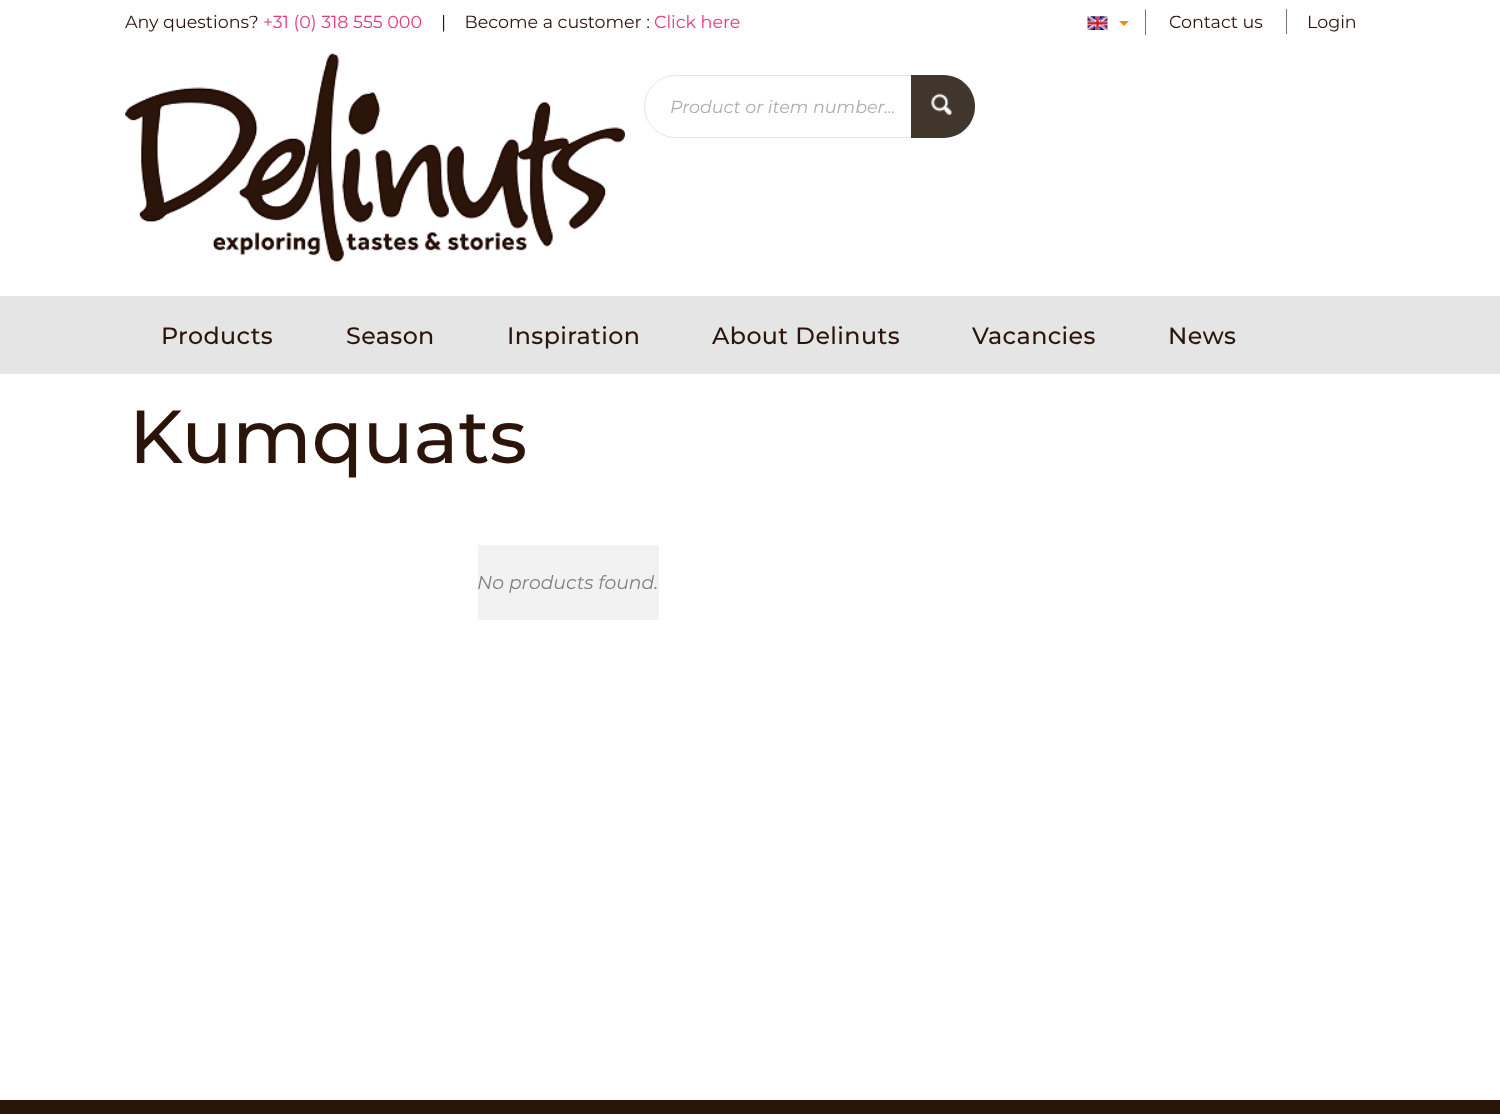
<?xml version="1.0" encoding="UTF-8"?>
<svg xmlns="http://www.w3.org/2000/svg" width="1500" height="1114">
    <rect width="100%" height="100%" fill="#FFFFFF"/>
    <text x="125" y="28" font-family="Montserrat" font-size="17.5" fill="#2B140A">Any questions?</text>
    <text x="263" y="28" font-family="Montserrat" font-size="17.5" fill="#E6377E">+31 (0) 318 555 000</text>
    <text x="441" y="28" font-family="Montserrat" font-size="17.5" fill="#2B140A" xml:space="preserve">|    Become a customer :</text>
    <text x="654" y="28" font-family="Montserrat" font-size="17.5" fill="#E6377E">Click here</text>
    <path d="M 1146 9 V 35 H 1145 V 10 Z" fill="#797068"/>
    <image x="1087" y="16" width="21" height="14" href="img_01.png"/>
    <path d="M 1119 21 H 1129 L 1124 26 Z" fill="#F28B0C"/>
    <text x="1169" y="28" font-family="Montserrat" font-size="17.5" fill="#2B140A">Contact us</text>
    <rect x="1286" y="9" width="1" height="25" fill="#797068"/>
    <text x="1307" y="28" font-family="Montserrat" font-size="17.5" fill="#2B140A">Login</text>
    <image x="125" y="53" width="500" height="209" href="img_02.png"/>
    <path d="M 675.5 75.5 H 912.5 V 137.5 H 675.5 C 658.5 137.5 644.5 123.5 644.5 106.5 C 644.5 89.5 658.5 75.5 675.5 75.5 Z" fill="none" stroke="#E5E5E5"/>
    <text x="670" y="113" font-family="Montserrat" font-size="17.5" font-style="italic" fill="#ADACAB">Product or item number...</text>
    <path d="M 911 75 H 943.5 C 961 75 975 89 975 106.5 C 975 124 961 138 943.5 138 H 911 Z" fill="#40362B"/>
    <image x="931" y="93" width="22" height="22" href="img_03.png"/>
    <rect x="0" y="296" width="1500" height="78" fill="#E5E5E5"/>
    <text x="161" y="344" font-family="Montserrat" font-size="23.75" font-weight="500" letter-spacing="0.4" fill="#2B140A">Products</text>
    <text x="346" y="344" font-family="Montserrat" font-size="23.75" font-weight="500" letter-spacing="0.4" fill="#2B140A">Season</text>
    <text x="507" y="344" font-family="Montserrat" font-size="23.75" font-weight="500" letter-spacing="0.4" fill="#2B140A">Inspiration</text>
    <text x="712" y="344" font-family="Montserrat" font-size="23.75" font-weight="500" letter-spacing="0.4" fill="#2B140A">About Delinuts</text>
    <text x="972" y="344" font-family="Montserrat" font-size="23.75" font-weight="500" letter-spacing="0.4" fill="#2B140A">Vacancies</text>
    <text x="1168" y="344" font-family="Montserrat" font-size="23.75" font-weight="500" letter-spacing="0.4" fill="#2B140A">News</text>
    <text x="129" y="463" font-family="Montserrat" font-size="75" font-weight="500" fill="#2B140A">Kumquats</text>
    <rect x="478" y="545" width="181" height="75" fill="#F2F2F2"/>
    <text x="477" y="589" font-family="Montserrat" font-size="18.75" font-style="italic" fill="#808080">No products found.</text>
    <rect x="0" y="1100" width="1500" height="14" fill="#2B140A"/>
</svg>
